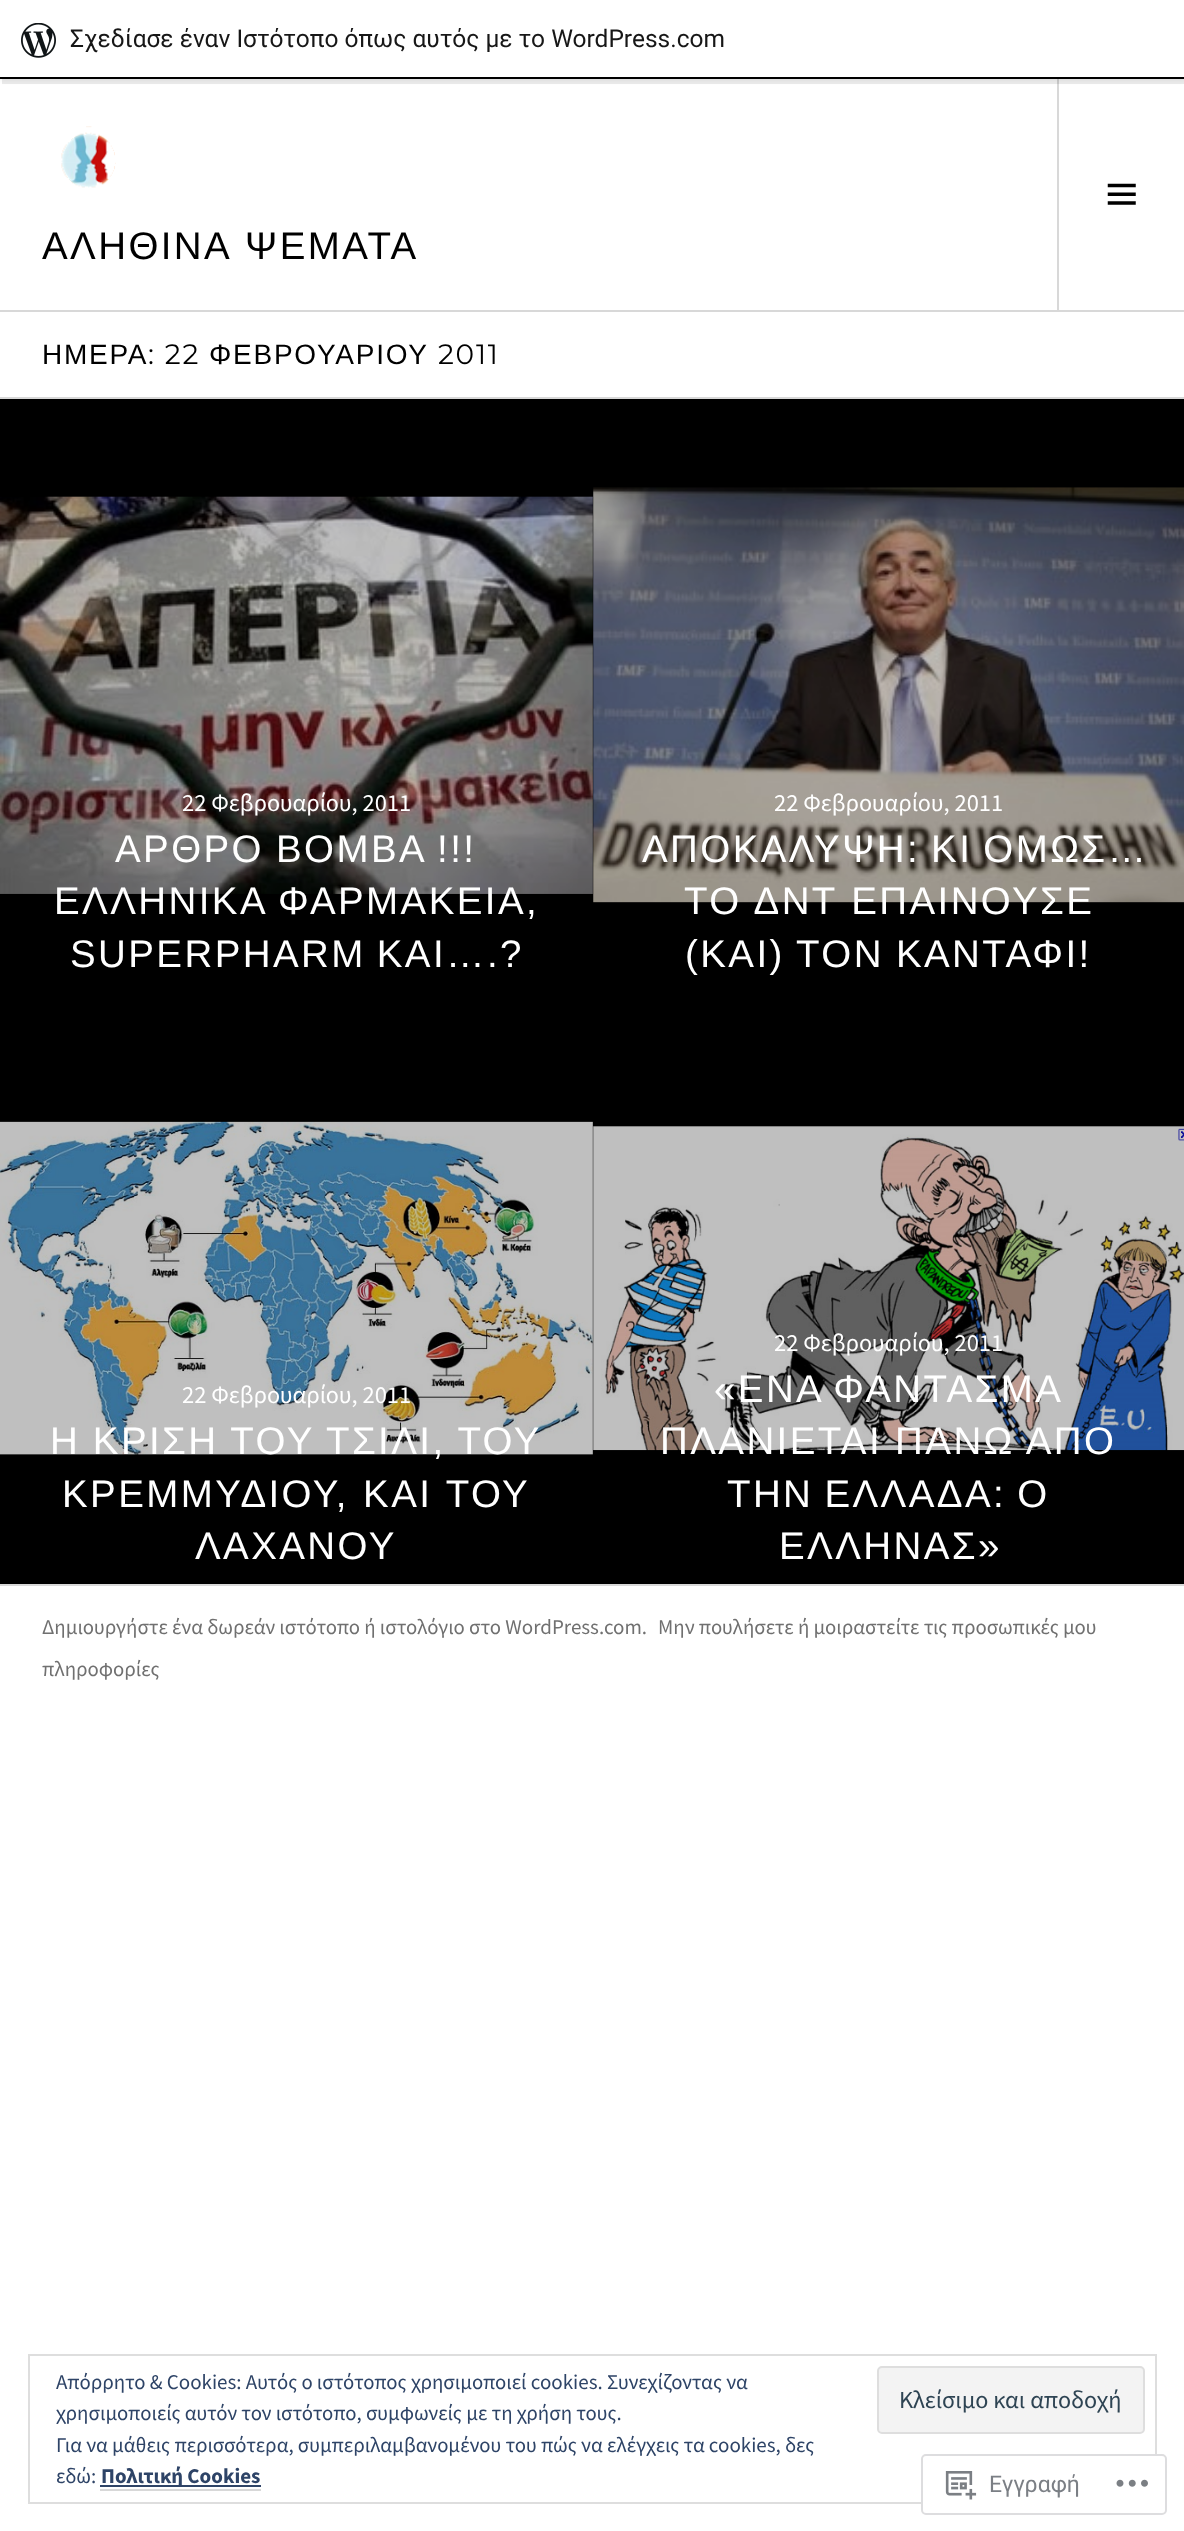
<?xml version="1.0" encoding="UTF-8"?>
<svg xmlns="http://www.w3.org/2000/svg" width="1184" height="2531">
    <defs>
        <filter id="blur1" x="-50%" y="-200%" width="200%" height="500%"><feGaussianBlur stdDeviation="2"/></filter>
    </defs>
    <rect width="100%" height="100%" fill="#FFFFFF"/>
    <rect x="1057" y="79" width="2" height="231" fill="#D8D8D8"/>
    <rect x="0" y="2" width="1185" height="79" fill="#000000" fill-opacity="0.05" filter="url(#blur1)"/>
    <path d="M 2 79 V 84 H 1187 V 5 H 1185 V 79 Z" fill="#000000" fill-opacity="0.08"/>
    <rect x="0" y="0" width="1184" height="77" fill="#FFFFFF"/>
    <image x="21" y="23" width="35" height="35" href="img_01.png"/>
    <text x="70" y="47" font-family="Roboto" font-size="24.5" fill="#171717">Σχεδίασε έναν Ιστότοπο όπως αυτός με το WordPress.com</text>
    <rect x="0" y="77" width="1184" height="2" fill="#000000"/>
    <rect x="0" y="310" width="1184" height="2" fill="#D8D8D8"/>
    <image x="61" y="126" width="55" height="62" href="img_02.png"/>
    <text x="42" y="259" word-spacing="2" font-family="Liberation Sans" font-size="38.5" letter-spacing="2.4" fill="#000000">ΑΛΗΘΙΝΑ ΨΕΜΑΤΑ</text>
    <image x="1107" y="183" width="29" height="22" href="img_03.png"/>
    <rect x="0" y="397" width="1184" height="2" fill="#D8D8D8"/>
    <text x="42" y="364" font-family="Liberation Sans" font-size="28" letter-spacing="1.75" fill="#000000">ΗΜΕΡΑ</text>
    <text x="148" y="364" font-family="Montserrat" font-size="28" letter-spacing="1.75" fill="#000000">: 22</text>
    <text x="209" y="364" font-family="Liberation Sans" font-size="28" letter-spacing="1.75" fill="#000000">ΦΕΒΡΟΥΑΡΙΟΥ</text>
    <text x="438" y="364" font-family="Montserrat" font-size="28" letter-spacing="1.75" fill="#000000">2011</text>
    <rect x="0" y="399" width="1184" height="592" fill="#000000"/>
    <image x="0" y="496" width="593" height="398" href="img_04.png"/>
    <text x="182" y="811" font-family="Source Sans Pro" font-size="24.5" fill="#FFFFFF">22 Φεβρουαρίου, 2011</text>
    <text x="115" y="862" word-spacing="-1" font-family="Liberation Sans" font-size="38.5" letter-spacing="2.4" fill="#FFFFFF">ΑΡΘΡΟ ΒΟΜΒΑ !!!</text>
    <text x="54" y="914" word-spacing="-1" font-family="Liberation Sans" font-size="38.5" letter-spacing="2.4" fill="#FFFFFF">ΕΛΛΗΝΙΚΑ ΦΑΡΜΑΚΕΙΑ,</text>
    <text x="70" y="967" word-spacing="-2" font-family="Liberation Sans" font-size="38.5" letter-spacing="2.4" fill="#FFFFFF">SUPERPHARM ΚΑΙ….?</text>
    <image x="593" y="487" width="591" height="416" href="img_05.png"/>
    <text x="774" y="811" font-family="Source Sans Pro" font-size="24.5" fill="#FFFFFF">22 Φεβρουαρίου, 2011</text>
    <text x="642" y="862" word-spacing="-2" font-family="Liberation Sans" font-size="38.5" letter-spacing="2.4" fill="#FFFFFF">ΑΠΟΚΑΛΥΨΗ: ΚΙ ΟΜΩΣ…</text>
    <text x="684" y="914" word-spacing="1" font-family="Liberation Sans" font-size="38.5" letter-spacing="2.4" fill="#FFFFFF">ΤΟ ΔΝΤ ΕΠΑΙΝΟΥΣΕ</text>
    <text x="685" y="967" word-spacing="-1" font-family="Liberation Sans" font-size="38.5" letter-spacing="2.4" fill="#FFFFFF">(ΚΑΙ) ΤΟΝ ΚΑΝΤΑΦΙ!</text>
    <rect x="0" y="991" width="1184" height="593" fill="#000000"/>
    <image x="0" y="1121" width="593" height="334" href="img_06.png"/>
    <text x="182" y="1403" font-family="Source Sans Pro" font-size="24.5" fill="#FFFFFF">22 Φεβρουαρίου, 2011</text>
    <text x="50" y="1454" word-spacing="-0.5" font-family="Liberation Sans" font-size="38.5" letter-spacing="2.4" fill="#FFFFFF">Η ΚΡΙΣΗ ΤΟΥ ΤΣΙΛΙ, ΤΟΥ</text>
    <text x="62" y="1507" word-spacing="1" font-family="Liberation Sans" font-size="38.5" letter-spacing="2.4" fill="#FFFFFF">ΚΡΕΜΜΥΔΙΟΥ, ΚΑΙ ΤΟΥ</text>
    <text x="195" y="1559" font-family="Liberation Sans" font-size="38.5" letter-spacing="2.4" fill="#FFFFFF">ΛΑΧΑΝΟΥ</text>
    <image x="593" y="1126" width="591" height="325" href="img_07.png"/>
    <text x="774" y="1351" font-family="Source Sans Pro" font-size="24.5" fill="#FFFFFF">22 Φεβρουαρίου, 2011</text>
    <text x="714" y="1402" word-spacing="-2" font-family="Liberation Sans" font-size="38.5" letter-spacing="2.4" fill="#FFFFFF">«ΕΝΑ ΦΑΝΤΑΣΜΑ</text>
    <text x="660" y="1454" font-family="Liberation Sans" font-size="38.5" letter-spacing="2.4" fill="#FFFFFF">ΠΛΑΝΙΕΤΑΙ ΠΑΝΩ ΑΠΟ</text>
    <text x="727" y="1507" word-spacing="-2" font-family="Liberation Sans" font-size="38.5" letter-spacing="2.4" fill="#FFFFFF">ΤΗΝ ΕΛΛΑΔΑ: Ο</text>
    <text x="779" y="1559" font-family="Liberation Sans" font-size="38.5" letter-spacing="2.4" fill="#FFFFFF">ΕΛΛΗΝΑΣ»</text>
    <rect x="0" y="1584" width="1184" height="2" fill="#D8D8D8"/>
    <text x="42" y="1634" font-family="Source Sans Pro" font-size="21" fill="#707070">Δημιουργήστε ένα δωρεάν ιστότοπο ή ιστολόγιο στο WordPress.com.</text>
    <text x="658" y="1634" font-family="Source Sans Pro" font-size="21" fill="#707070">Μην πουλήσετε ή μοιραστείτε τις προσωπικές μου</text>
    <text x="42" y="1676" font-family="Source Sans Pro" font-size="21" fill="#707070">πληροφορίες</text>
    <rect x="29" y="2355" width="1127" height="148" fill="none" stroke="#DEDEDE" stroke-width="2"/>
    <text font-family="Source Sans Pro" font-size="21" fill="#2E4467">
        <tspan x="56" y="2389">Απόρρητο &amp; Cookies: Αυτός ο ιστότοπος χρησιμοποιεί cookies. Συνεχίζοντας να</tspan>
        <tspan x="56" y="2420">χρησιμοποιείς αυτόν τον ιστότοπο, συμφωνείς με τη χρήση τους.</tspan>
    </text>
    <rect x="878" y="2367" width="266" height="66" rx="4" fill="#F3F3F3" stroke="#DEDEDE" stroke-width="2"/>
    <text x="899" y="2408" font-family="Source Sans Pro" font-size="24.5" fill="#2E4453">Κλείσιμο και αποδοχή</text>
    <text font-family="Source Sans Pro" font-size="21" fill="#2E4467">
        <tspan x="56" y="2452">Για να μάθεις περισσότερα, συμπεριλαμβανομένου του πώς να ελέγχεις τα cookies, δες</tspan>
        <tspan x="56" y="2483">εδώ:</tspan>
    </text>
    <rect x="100" y="2485" width="161" height="2" fill="#2E4467"/>
    <text x="101" y="2483" font-family="Source Sans Pro" font-size="21" font-weight="700" fill="#2E4467">Πολιτική Cookies</text>
    <rect x="100" y="2489" width="161" height="2" fill="#D8D8D8"/>
    <rect x="922" y="2455" width="244" height="59" rx="4" fill="#FFFFFF" fill-opacity="0.98" stroke="#DDDDDF" stroke-width="2"/>
    <image x="945" y="2471" width="32" height="29" href="img_08.png"/>
    <text x="989" y="2492" font-family="Roboto" font-size="23" fill="#7B7F85">Εγγραφή</text>
    <image x="1116" y="2479" width="32" height="8" href="img_09.png"/>
</svg>
